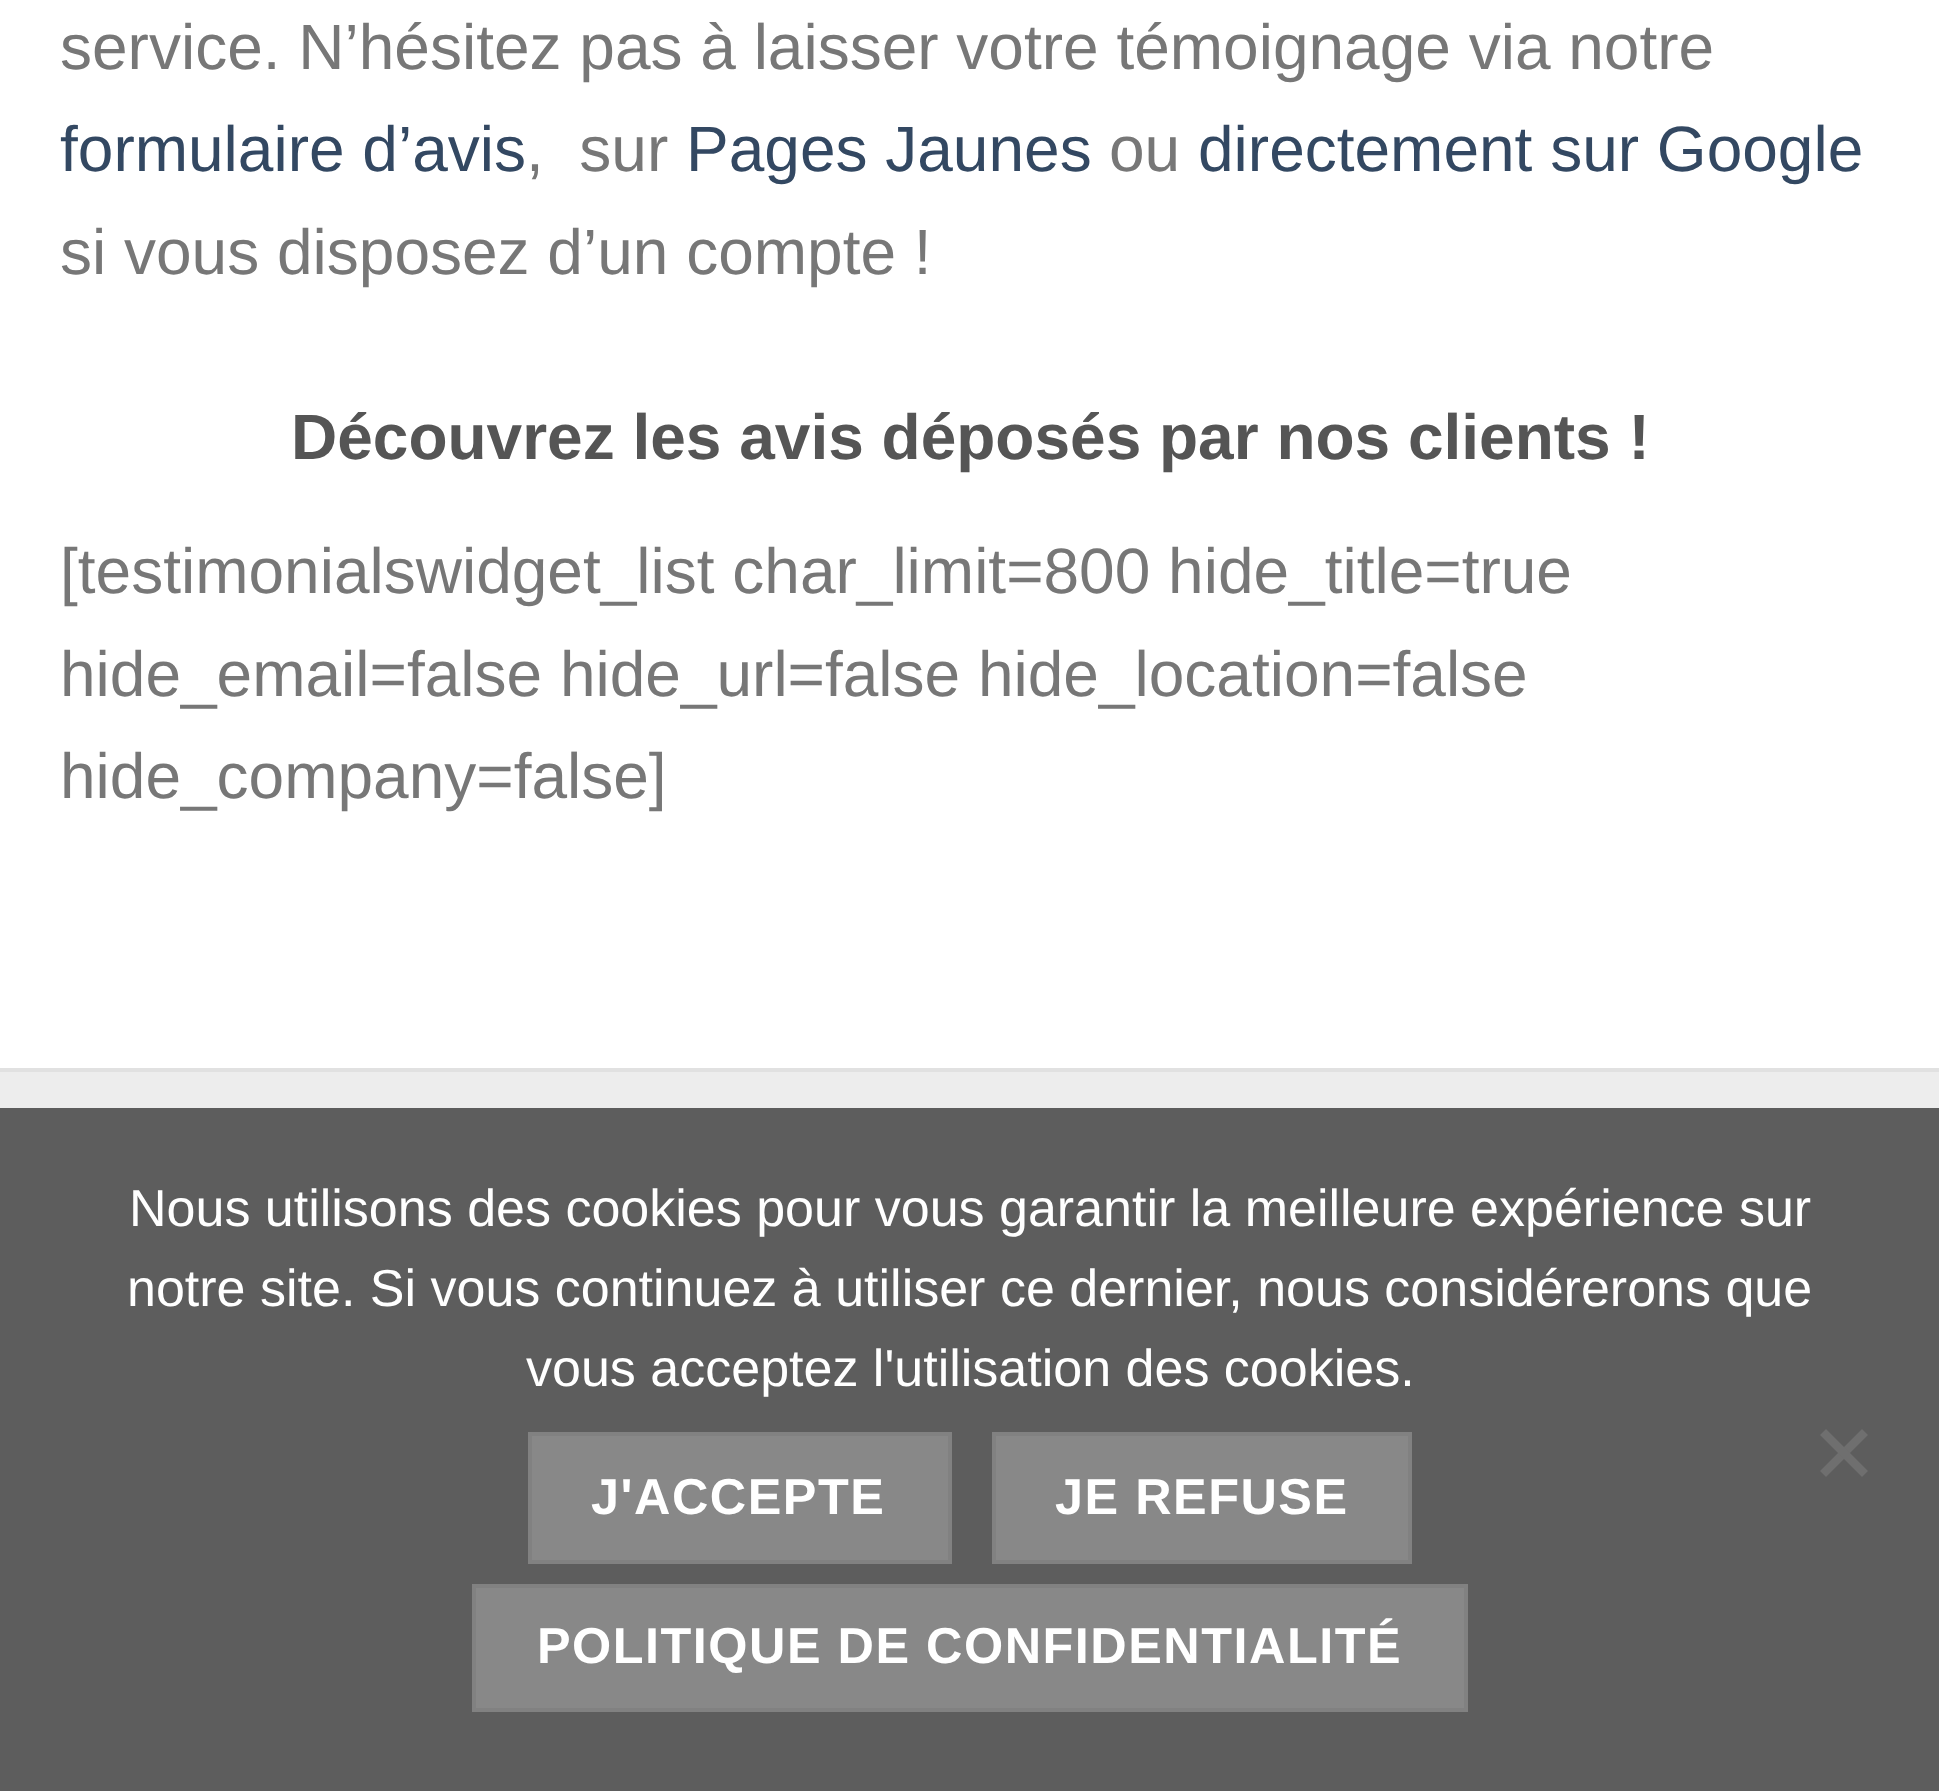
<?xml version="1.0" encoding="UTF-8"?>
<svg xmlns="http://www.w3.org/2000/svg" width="1939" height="1791">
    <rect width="100%" height="100%" fill="#FFFFFF"/>
    <text x="60" y="69" font-family="Liberation Sans" font-size="64" fill="#777777">service. N’hésitez pas à laisser votre témoignage via notre</text>
    <text x="60" y="171" font-family="Liberation Sans" font-size="64" fill="#334862">formulaire d’avis</text>
    <text x="526" y="171" font-family="Liberation Sans" font-size="64" fill="#777777" xml:space="preserve">,  sur</text>
    <text x="686" y="171" font-family="Liberation Sans" font-size="64" fill="#334862">Pages Jaunes</text>
    <text x="1109" y="171" font-family="Liberation Sans" font-size="64" fill="#777777">ou</text>
    <text x="1198" y="171" font-family="Liberation Sans" font-size="64" fill="#334862">directement sur Google</text>
    <text x="60" y="274" font-family="Liberation Sans" font-size="64" fill="#777777">si vous disposez d’un compte !</text>
    <text x="291" y="459" font-family="Liberation Sans" font-size="64" font-weight="700" fill="#555555">Découvrez les avis déposés par nos clients !</text>
    <text font-family="Liberation Sans" font-size="64" fill="#777777">
        <tspan x="60" y="593">[testimonialswidget_list char_limit=800 hide_title=true</tspan>
        <tspan x="60" y="696">hide_email=false hide_url=false hide_location=false</tspan>
        <tspan x="60" y="798">hide_company=false]</tspan>
    </text>
    <rect x="0" y="1072" width="1939" height="36" fill="#EDEDED"/>
    <rect x="0" y="1068" width="1939" height="4" fill="#E1E1E1"/>
    <rect x="0" y="1108" width="1939" height="683" fill="#5D5D5D"/>
    <text x="129" y="1226" font-family="Liberation Sans" font-size="52" fill="#FFFFFF">Nous utilisons des cookies pour vous garantir la meilleure expérience sur</text>
    <text x="127" y="1306" font-family="Liberation Sans" font-size="52" fill="#FFFFFF">notre site. Si vous continuez à utiliser ce dernier, nous considérerons que</text>
    <text x="526" y="1386" font-family="Liberation Sans" font-size="52" fill="#FFFFFF">vous acceptez l'utilisation des cookies.</text>
    <path d="M 1862 1429 L 1868 1435 L 1826 1477 L 1820 1471 Z" fill="#6F6F6F"/>
    <path d="M 1820 1435 L 1826 1429 L 1868 1471 L 1862 1477 Z" fill="#6F6F6F"/>
    <rect x="530" y="1434" width="420" height="128" fill="#888888" stroke="#818181" stroke-width="4"/>
    <text x="591" y="1514" font-family="Liberation Sans" font-size="50.4" font-weight="700" letter-spacing="1.5" fill="#FFFFFF">J'ACCEPTE</text>
    <rect x="994" y="1434" width="416" height="128" fill="#888888" stroke="#818181" stroke-width="4"/>
    <text x="1055" y="1514" font-family="Liberation Sans" font-size="50.4" font-weight="700" letter-spacing="1.5" fill="#FFFFFF">JE REFUSE</text>
    <rect x="474" y="1586" width="992" height="124" fill="#888888" stroke="#818181" stroke-width="4"/>
    <text x="537" y="1663" font-family="Liberation Sans" font-size="50.4" font-weight="700" letter-spacing="1.5" fill="#FFFFFF">POLITIQUE DE CONFIDENTIALITÉ</text>
</svg>
